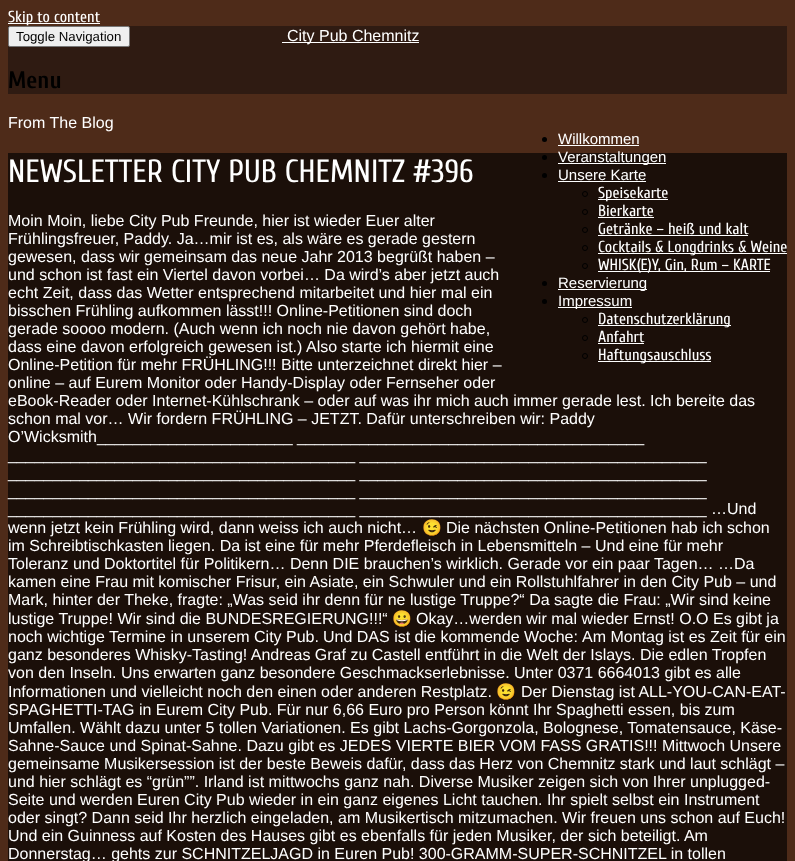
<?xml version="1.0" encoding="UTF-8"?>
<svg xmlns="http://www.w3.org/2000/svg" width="795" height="861">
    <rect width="100%" height="100%" fill="#4E2B19"/>
    <rect x="8" y="23" width="92" height="1" fill="#FFFFFF"/>
    <text x="8" y="22" font-family="Cuprum" font-size="16" fill="#FFFFFF">Skip to content</text>
    <rect x="8" y="26" width="779" height="68" fill="#2F1B12"/>
    <rect x="8.5" y="26.5" width="121" height="20" rx="1.5" fill="#EFEFEF" stroke="#767676"/>
    <text x="16" y="41" font-family="Liberation Sans" font-size="13.25" fill="#000000">Toggle Navigation</text>
    <rect x="282" y="42" width="137" height="1" fill="#FFFFFF"/>
    <text x="287" y="41" font-family="Liberation Sans" font-size="16" fill="#FFFFFF">City Pub Chemnitz</text>
    <text x="8" y="88" font-family="Cuprum" font-size="24" font-weight="700" fill="#000000">Menu</text>
    <circle cx="544.5" cy="139.5" r="2.5" fill="#000000"/>
    <text x="558" y="144" font-family="Liberation Sans" font-size="15" fill="#FFFFFF">Willkommen</text>
    <rect x="558" y="145" width="81" height="1" fill="#FFFFFF"/>
    <rect x="8" y="153" width="779" height="708" fill="#1B0F09"/>
    <circle cx="544.5" cy="157.5" r="2.5" fill="#000000"/>
    <rect x="558" y="163" width="108" height="1" fill="#FFFFFF"/>
    <text x="558" y="162" font-family="Liberation Sans" font-size="15" fill="#FFFFFF">Veranstaltungen</text>
    <circle cx="544.5" cy="175.5" r="2.5" fill="#000000"/>
    <text x="558" y="180" font-family="Liberation Sans" font-size="15" fill="#FFFFFF">Unsere Karte</text>
    <rect x="558" y="181" width="88" height="1" fill="#FFFFFF"/>
    <circle cx="585" cy="194" r="2.5" fill="none" stroke="#000000"/>
    <rect x="598" y="199" width="70" height="1" fill="#FFFFFF"/>
    <text x="598" y="198" font-family="Cuprum" font-size="16" fill="#FFFFFF">Speisekarte</text>
    <circle cx="585" cy="212" r="2.5" fill="none" stroke="#000000"/>
    <text x="598" y="216" font-family="Cuprum" font-size="16" fill="#FFFFFF">Bierkarte</text>
    <rect x="598" y="217" width="56" height="1" fill="#FFFFFF"/>
    <circle cx="585" cy="230" r="2.5" fill="none" stroke="#000000"/>
    <text x="598" y="234" font-family="Cuprum" font-size="16" fill="#FFFFFF">Getränke – heiß und kalt</text>
    <rect x="598" y="235" width="150" height="1" fill="#FFFFFF"/>
    <circle cx="585" cy="248" r="2.5" fill="none" stroke="#000000"/>
    <rect x="598" y="253" width="189" height="1" fill="#FFFFFF"/>
    <text x="598" y="252" font-family="Cuprum" font-size="16" fill="#FFFFFF">Cocktails &amp; Longdrinks &amp; Weine</text>
    <circle cx="585" cy="266" r="2.5" fill="none" stroke="#000000"/>
    <rect x="598" y="271" width="172" height="1" fill="#FFFFFF"/>
    <text x="598" y="270" font-family="Cuprum" font-size="16" fill="#FFFFFF">WHISK(E)Y, Gin, Rum – KARTE</text>
    <circle cx="544.5" cy="283.5" r="2.5" fill="#000000"/>
    <rect x="558" y="289" width="89" height="1" fill="#FFFFFF"/>
    <text x="558" y="288" font-family="Liberation Sans" font-size="15" fill="#FFFFFF">Reservierung</text>
    <circle cx="544.5" cy="301.5" r="2.5" fill="#000000"/>
    <rect x="558" y="307" width="74" height="1" fill="#FFFFFF"/>
    <text x="558" y="306" font-family="Liberation Sans" font-size="15" fill="#FFFFFF">Impressum</text>
    <circle cx="585" cy="320" r="2.5" fill="none" stroke="#000000"/>
    <rect x="598" y="325" width="133" height="1" fill="#FFFFFF"/>
    <text x="598" y="324" font-family="Cuprum" font-size="16" fill="#FFFFFF">Datenschutzerklärung</text>
    <circle cx="585" cy="338" r="2.5" fill="none" stroke="#000000"/>
    <text x="598" y="342" font-family="Cuprum" font-size="16" fill="#FFFFFF">Anfahrt</text>
    <rect x="598" y="343" width="46" height="1" fill="#FFFFFF"/>
    <circle cx="585" cy="356" r="2.5" fill="none" stroke="#000000"/>
    <rect x="598" y="361" width="113" height="1" fill="#FFFFFF"/>
    <text x="598" y="360" font-family="Cuprum" font-size="16" fill="#FFFFFF">Haftungsauschluss</text>
    <text x="8" y="128" font-family="Liberation Sans" font-size="16" fill="#FFFFFF">From The Blog</text>
    <text x="8" y="182" font-family="Cuprum" font-size="32" fill="#FFFFFF">NEWSLETTER CITY PUB CHEMNITZ #396</text>
    <text font-family="Liberation Sans" font-size="16" fill="#FFFFFF">
        <tspan x="8" y="226">Moin Moin, liebe City Pub Freunde, hier ist wieder Euer alter</tspan>
        <tspan x="8" y="244">Frühlingsfreuer, Paddy. Ja…mir ist es, als wäre es gerade gestern</tspan>
        <tspan x="8" y="262">gewesen, dass wir gemeinsam das neue Jahr 2013 begrüßt haben –</tspan>
        <tspan x="8" y="280">und schon ist fast ein Viertel davon vorbei… Da wird’s aber jetzt auch</tspan>
        <tspan x="8" y="298">echt Zeit, dass das Wetter entsprechend mitarbeitet und hier mal ein</tspan>
        <tspan x="8" y="316">bisschen Frühling aufkommen lässt!!! Online-Petitionen sind doch</tspan>
        <tspan x="8" y="334">gerade soooo modern. (Auch wenn ich noch nie davon gehört habe,</tspan>
        <tspan x="8" y="352">dass eine davon erfolgreich gewesen ist.)</tspan>
    </text>
    <text x="306" y="352" font-family="Liberation Sans" font-size="16" fill="#FFFFFF">Also starte ich hiermit eine</text>
    <text font-family="Liberation Sans" font-size="16" fill="#FFFFFF">
        <tspan x="8" y="370">Online-Petition für mehr FRÜHLING!!! Bitte unterzeichnet direkt hier –</tspan>
        <tspan x="8" y="388">online – auf Eurem Monitor oder Handy-Display oder Fernseher oder</tspan>
        <tspan x="8" y="406">eBook-Reader oder Internet-Kühlschrank – oder auf was ihr mich auch immer gerade lest. Ich bereite das</tspan>
        <tspan x="8" y="424">schon mal vor… Wir fordern FRÜHLING – JETZT. Dafür unterschreiben wir: Paddy</tspan>
        <tspan x="8" y="442">O’Wicksmith______________________ _______________________________________</tspan>
        <tspan x="8" y="460">_______________________________________ _______________________________________</tspan>
        <tspan x="8" y="478">_______________________________________ _______________________________________</tspan>
        <tspan x="8" y="496">_______________________________________ _______________________________________</tspan>
        <tspan x="8" y="514">_______________________________________ _______________________________________ …Und</tspan>
        <tspan x="8" y="533">wenn jetzt kein Frühling wird, dann weiss ich auch nicht…</tspan>
    </text>
    <text x="422" y="533" font-family="Noto Color Emoji" font-size="16" fill="#FFFFFF">😉</text>
    <text x="446" y="533" font-family="Liberation Sans" font-size="16" fill="#FFFFFF">Die nächsten Online-Petitionen hab ich schon</text>
    <text font-family="Liberation Sans" font-size="16" fill="#FFFFFF">
        <tspan x="8" y="551">im Schreibtischkasten liegen. Da ist eine für mehr Pferdefleisch in Lebensmitteln – Und eine für mehr</tspan>
        <tspan x="8" y="569">Toleranz und Doktortitel für Politikern… Denn DIE brauchen’s wirklich. Gerade vor ein paar Tagen… …Da</tspan>
        <tspan x="8" y="587">kamen eine Frau mit komischer Frisur, ein Asiate, ein Schwuler und ein Rollstuhlfahrer in den City Pub – und</tspan>
        <tspan x="8" y="605">Mark, hinter der Theke, fragte: „Was seid ihr denn für ne lustige Truppe?“ Da sagte die Frau: „Wir sind keine</tspan>
        <tspan x="8" y="624">lustige Truppe! Wir sind die BUNDESREGIERUNG!!!“</tspan>
    </text>
    <text x="392" y="624" font-family="Noto Color Emoji" font-size="16" fill="#FFFFFF">😀</text>
    <text x="416" y="624" font-family="Liberation Sans" font-size="16" fill="#FFFFFF">Okay…werden wir mal wieder Ernst! O.O Es gibt ja</text>
    <text x="8" y="642" font-family="Liberation Sans" font-size="16" fill="#FFFFFF">noch wichtige Termine in unserem City Pub.</text>
    <text x="323" y="642" font-family="Liberation Sans" font-size="16" fill="#FFFFFF">Und DAS ist die kommende Woche:</text>
    <text x="582" y="642" font-family="Liberation Sans" font-size="16" fill="#FFFFFF">Am Montag ist es Zeit für ein</text>
    <text font-family="Liberation Sans" font-size="16" fill="#FFFFFF">
        <tspan x="8" y="660">ganz besonderes Whisky-Tasting! Andreas Graf zu Castell entführt in die Welt der Islays. Die edlen Tropfen</tspan>
        <tspan x="8" y="678">von den Inseln. Uns erwarten ganz besondere Geschmackserlebnisse. Unter 0371 6664013 gibt es alle</tspan>
        <tspan x="8" y="697">Informationen und vielleicht noch den einen oder anderen Restplatz.</tspan>
    </text>
    <text x="496" y="697" font-family="Noto Color Emoji" font-size="16" fill="#FFFFFF">😉</text>
    <text x="521" y="697" font-family="Liberation Sans" font-size="16" fill="#FFFFFF">Der Dienstag ist ALL-YOU-CAN-EAT-</text>
    <text font-family="Liberation Sans" font-size="16" fill="#FFFFFF">
        <tspan x="8" y="715">SPAGHETTI-TAG in Eurem City Pub. Für nur 6,66 Euro pro Person könnt Ihr Spaghetti essen, bis zum</tspan>
        <tspan x="8" y="733">Umfallen. Wählt dazu unter 5 tollen Variationen. Es gibt Lachs-Gorgonzola, Bolognese, Tomatensauce, Käse-</tspan>
        <tspan x="8" y="751">Sahne-Sauce und Spinat-Sahne. Dazu gibt es JEDES VIERTE BIER VOM FASS GRATIS!!! Mittwoch Unsere</tspan>
        <tspan x="8" y="769">gemeinsame Musikersession ist der beste Beweis dafür, dass das Herz von Chemnitz stark und laut schlägt –</tspan>
        <tspan x="8" y="787">und hier schlägt es “grün””. Irland ist mittwochs ganz nah. Diverse Musiker zeigen sich von Ihrer unplugged-</tspan>
        <tspan x="8" y="805">Seite und werden Euren City Pub wieder in ein ganz eigenes Licht tauchen. Ihr spielt selbst ein Instrument</tspan>
        <tspan x="8" y="823">oder singt? Dann seid Ihr herzlich eingeladen, am Musikertisch mitzumachen. Wir freuen uns schon auf Euch!</tspan>
        <tspan x="8" y="841">Und ein Guinness auf Kosten des Hauses gibt es ebenfalls für jeden Musiker, der sich beteiligt. Am</tspan>
        <tspan x="8" y="859">Donnerstag… gehts zur SCHNITZELJAGD in Euren Pub! 300-GRAMM-SUPER-SCHNITZEL in tollen</tspan>
    </text>
</svg>
